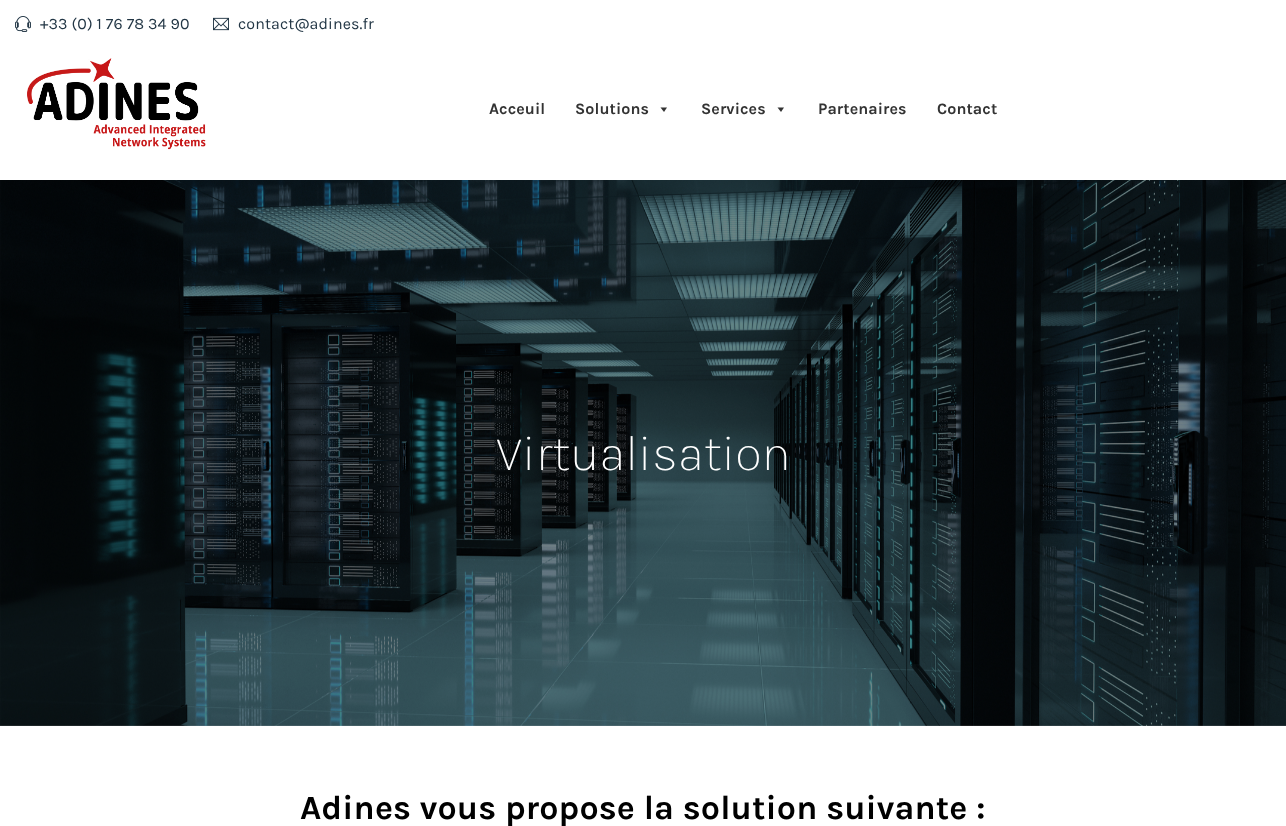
<?xml version="1.0" encoding="UTF-8"?>
<svg xmlns="http://www.w3.org/2000/svg" width="1286" height="826">
    <rect width="100%" height="100%" fill="#FFFFFF"/>
    <image x="15" y="16" width="16" height="16" href="img_01.png"/>
    <text x="40" y="29" font-family="Karla" font-size="16" letter-spacing="0.1" fill="#223645">+33 (0) 1 76 78 34 90</text>
    <image x="213" y="17" width="16" height="14" href="img_02.png"/>
    <text x="238" y="29" font-family="Karla" font-size="16" letter-spacing="0.1" fill="#223645">contact@adines.fr</text>
    <image x="27" y="58" width="179" height="92" href="img_03.png"/>
    <text x="489" y="114" font-family="Karla" font-size="16" font-weight="700" letter-spacing="0.1" fill="#333333">Acceuil</text>
    <text x="575" y="114" font-family="Karla" font-size="16" font-weight="700" letter-spacing="0.1" fill="#333333">Solutions</text>
    <path d="M 667 107.5 L 664 112 L 660.5 107.5 Z" fill="#333333"/>
    <text x="701" y="114" font-family="Karla" font-size="16" font-weight="700" letter-spacing="0.1" fill="#333333">Services</text>
    <path d="M 784 107.5 L 781 112 L 777.5 107.5 Z" fill="#333333"/>
    <text x="818" y="114" font-family="Karla" font-size="16" font-weight="700" letter-spacing="0.1" fill="#333333">Partenaires</text>
    <text x="937" y="114" font-family="Karla" font-size="16" font-weight="700" letter-spacing="0.1" fill="#333333">Contact</text>
    <image x="0" y="180" width="1286" height="546" href="img_04.png"/>
    <text x="496" y="470" font-family="Karla" font-size="50" font-weight="200" letter-spacing="0.1" fill="#FFFFFF">Virtualisation</text>
    <text x="300" y="819" font-family="Karla" font-size="34" font-weight="700" letter-spacing="0.1" fill="#000000">Adines vous propose la solution suivante :</text>
</svg>
